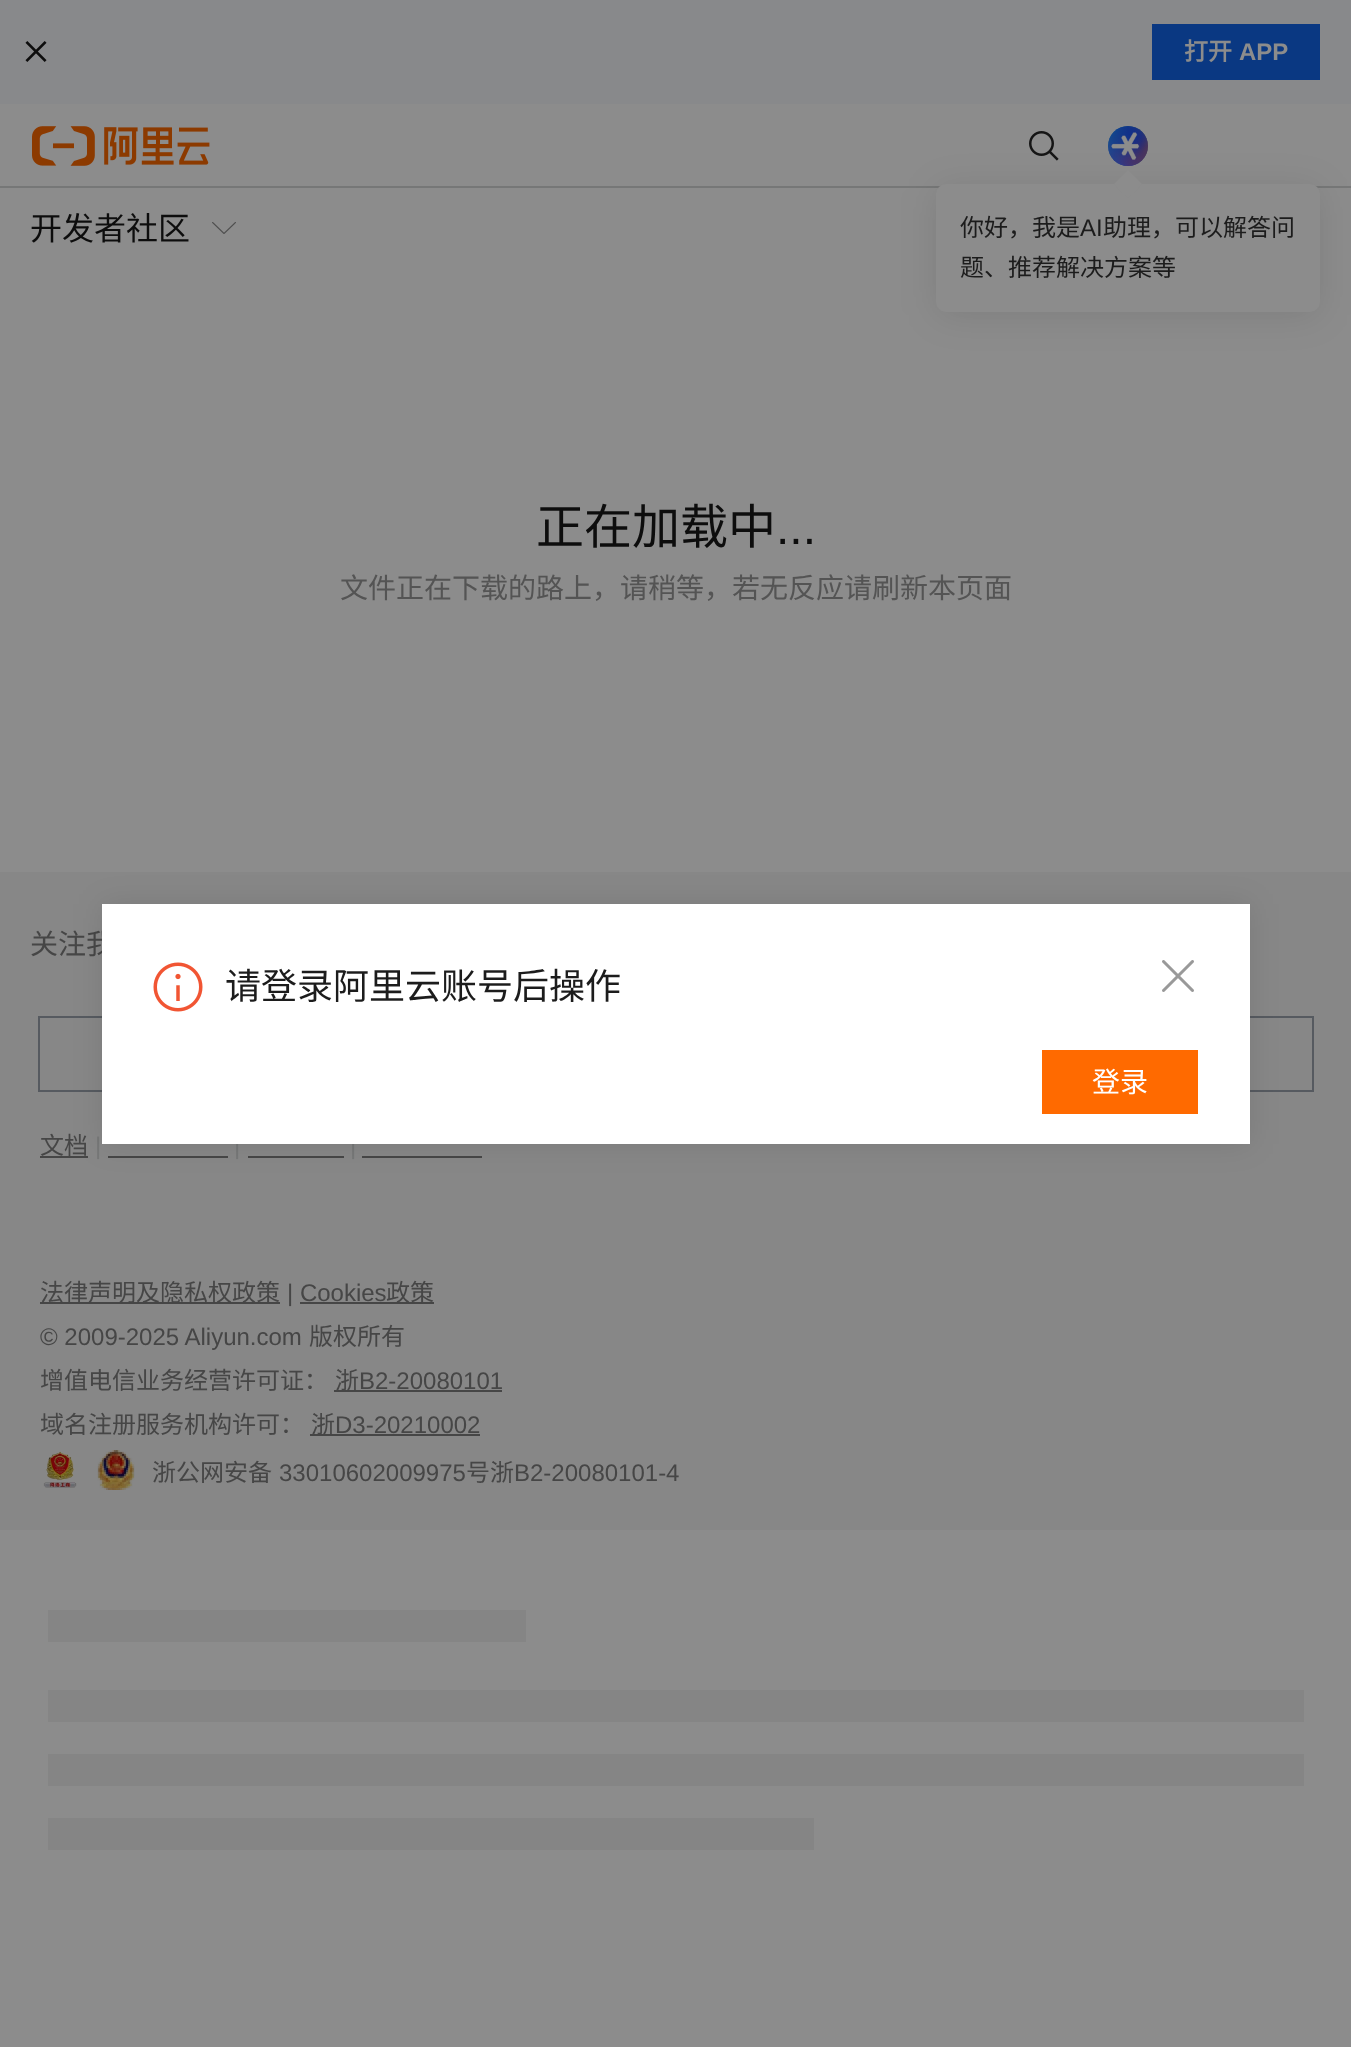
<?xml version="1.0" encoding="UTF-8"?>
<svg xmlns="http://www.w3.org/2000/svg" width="1351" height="2047">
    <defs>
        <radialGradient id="g1" gradientUnits="userSpaceOnUse" cx="1128" cy="156" r="36"><stop offset="0.05" stop-color="#44278C"/><stop offset="0.8" stop-color="#44278C" stop-opacity="0"/></radialGradient>
        <radialGradient id="g2" gradientUnits="userSpaceOnUse" cx="1138" cy="146" r="36"><stop offset="0.05" stop-color="#8C371C"/><stop offset="0.7" stop-color="#8C371C" stop-opacity="0"/></radialGradient>
        <radialGradient id="g3" gradientUnits="userSpaceOnUse" cx="1128" cy="136" r="36"><stop offset="0.05" stop-color="#0C288C"/><stop offset="0.6" stop-color="#0C288C" stop-opacity="0"/></radialGradient>
        <filter id="blur1" x="-50%" y="-200%" width="200%" height="500%"><feGaussianBlur stdDeviation="18"/></filter>
        <filter id="blur2" x="-50%" y="-200%" width="200%" height="500%"><feGaussianBlur stdDeviation="15"/></filter>
        <linearGradient id="g4" gradientUnits="userSpaceOnUse" x1="48" y1="1626" x2="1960" y2="1626"><stop offset="0.25" stop-color="#858585"/><stop offset="0.37" stop-color="#7F7F7F"/><stop offset="0.63" stop-color="#858585"/></linearGradient>
        <linearGradient id="g5" gradientUnits="userSpaceOnUse" x1="48" y1="1706" x2="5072" y2="1706"><stop offset="0.25" stop-color="#858585"/><stop offset="0.37" stop-color="#7F7F7F"/><stop offset="0.63" stop-color="#858585"/></linearGradient>
        <linearGradient id="g6" gradientUnits="userSpaceOnUse" x1="48" y1="1770" x2="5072" y2="1770"><stop offset="0.25" stop-color="#858585"/><stop offset="0.37" stop-color="#7F7F7F"/><stop offset="0.63" stop-color="#858585"/></linearGradient>
        <linearGradient id="g7" gradientUnits="userSpaceOnUse" x1="48" y1="1834" x2="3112" y2="1834"><stop offset="0.25" stop-color="#858585"/><stop offset="0.37" stop-color="#7F7F7F"/><stop offset="0.63" stop-color="#858585"/></linearGradient>
    </defs>
    <rect width="100%" height="100%" fill="#8C8C8C"/>
    <text x="30" y="240" font-family="Noto Sans CJK SC" font-size="32" fill="#0D0D0D">开发者社区</text>
    <image x="212" y="222" width="24" height="12" href="img_01.png"/>
    <rect x="0" y="0" width="1351" height="104" fill="#88898B"/>
    <image x="25" y="41" width="22" height="21" href="img_02.png"/>
    <rect x="1152" y="24" width="168" height="56" fill="#0A3882"/>
    <text x="1184" y="60" font-family="Noto Sans CJK SC" font-size="24" font-weight="700" fill="#8C8C8C">打开</text>
    <text x="1239" y="60" font-family="Liberation Sans" font-size="24" font-weight="700" fill="#8C8C8C">APP</text>
    <rect x="0" y="186" width="1351" height="2" fill="#767777"/>
    <image x="32" y="126" width="178" height="40" href="img_03.png"/>
    <image x="1029" y="131" width="30" height="30" href="img_04.png"/>
    <circle cx="1128" cy="146" r="20" fill="#145B8C"/>
    <circle cx="1128" cy="146" r="20" fill="url(#g1)"/>
    <circle cx="1128" cy="146" r="20" fill="url(#g2)"/>
    <circle cx="1128" cy="146" r="20" fill="url(#g3)"/>
    <image x="1108" y="126" width="40" height="40" href="img_05.png"/>
    <image x="1111" y="132" width="29" height="28" href="img_06.png"/>
    <rect x="936" y="188" width="384" height="128" rx="10" fill="#000000" fill-opacity="0.1" filter="url(#blur1)"/>
    <rect x="936" y="184" width="384" height="128" rx="10" fill="#8C8C8C"/>
    <path d="M 1128 170 L 1142 184 L 1128 198.5 L 1114 184 Z" fill="#8C8C8C"/>
    <text x="960" y="236" font-family="Noto Sans CJK SC" font-size="24" fill="#1C1C1C">你好，我是</text>
    <text x="1080" y="236" font-family="Liberation Sans" font-size="24" fill="#1C1C1C">AI</text>
    <text x="1103" y="236" font-family="Noto Sans CJK SC" font-size="24" fill="#1C1C1C">助理，可以解答问</text>
    <text x="960" y="276" font-family="Noto Sans CJK SC" font-size="24" fill="#1C1C1C">题、推荐解决方案等</text>
    <text x="536" y="544" font-family="Noto Sans CJK SC" font-size="48" fill="#0D0D0D">正在加载中</text>
    <text x="776" y="544" font-family="Liberation Sans" font-size="48" fill="#0D0D0D">...</text>
    <text x="340" y="598" font-family="Noto Sans CJK SC" font-size="28" fill="#545454">文件正在下载的路上，请稍等，若无反应请刷新本页面</text>
    <rect x="0" y="872" width="1351" height="658" fill="#878787"/>
    <text x="30" y="954" font-family="Noto Sans CJK SC" font-size="28" fill="#464646">关注我</text>
    <rect x="39" y="1017" width="1274" height="74" fill="none" stroke="#565A60" stroke-width="2"/>
    <text x="40" y="1154" font-family="Noto Sans CJK SC" font-size="24" fill="#464646">文档</text>
    <rect x="40" y="1156" width="48" height="2" fill="#464646"/>
    <text x="95" y="1154" font-family="Liberation Sans" font-size="24" fill="#767777">|</text>
    <rect x="108" y="1156" width="120" height="2" fill="#464646"/>
    <text x="234" y="1154" font-family="Liberation Sans" font-size="24" fill="#767777">|</text>
    <rect x="248" y="1156" width="96" height="2" fill="#464646"/>
    <text x="350" y="1154" font-family="Liberation Sans" font-size="24" fill="#767777">|</text>
    <rect x="362" y="1156" width="120" height="2" fill="#464646"/>
    <rect x="40" y="1302" width="240" height="2" fill="#464646"/>
    <text x="40" y="1301" font-family="Noto Sans CJK SC" font-size="24" fill="#464646">法律声明及隐私权政策</text>
    <text x="287" y="1301" font-family="Liberation Sans" font-size="24" fill="#464646">| Cookies</text>
    <rect x="300" y="1302" width="134" height="2" fill="#464646"/>
    <text x="386" y="1301" font-family="Noto Sans CJK SC" font-size="24" fill="#464646">政策</text>
    <text x="40" y="1345" font-family="Liberation Sans" font-size="24" fill="#464646">© 2009-2025 Aliyun.com</text>
    <text x="309" y="1345" font-family="Noto Sans CJK SC" font-size="24" fill="#464646">版权所有</text>
    <text x="40" y="1389" font-family="Noto Sans CJK SC" font-size="24" fill="#464646">增值电信业务经营许可证：</text>
    <rect x="334" y="1390" width="168" height="2" fill="#464646"/>
    <text x="335" y="1389" font-family="Noto Sans CJK SC" font-size="24" fill="#464646">浙</text>
    <text x="359" y="1389" font-family="Liberation Sans" font-size="24" fill="#464646">B2-20080101</text>
    <text x="40" y="1433" font-family="Noto Sans CJK SC" font-size="24" fill="#464646">域名注册服务机构许可：</text>
    <rect x="310" y="1434" width="170" height="2" fill="#464646"/>
    <text x="311" y="1433" font-family="Noto Sans CJK SC" font-size="24" fill="#464646">浙</text>
    <text x="335" y="1433" font-family="Liberation Sans" font-size="24" fill="#464646">D3-20210002</text>
    <image x="43" y="1451" width="34" height="37" href="img_07.png"/>
    <image x="97" y="1450" width="38" height="40" href="img_08.png"/>
    <text x="152" y="1481" font-family="Noto Sans CJK SC" font-size="24" fill="#464646">浙公网安备</text>
    <text x="279" y="1481" font-family="Liberation Sans" font-size="24" fill="#464646">33010602009975</text>
    <text x="466" y="1481" font-family="Noto Sans CJK SC" font-size="24" fill="#464646">号浙</text>
    <text x="514" y="1481" font-family="Liberation Sans" font-size="24" fill="#464646">B2-20080101-4</text>
    <rect x="102" y="904" width="1148" height="240" fill="#000000" fill-opacity="0.1" filter="url(#blur2)"/>
    <rect x="102" y="904" width="1148" height="240" fill="#FFFFFF"/>
    <image x="153" y="962" width="50" height="50" href="img_09.png"/>
    <text x="225" y="999" font-family="Noto Sans CJK SC" font-size="36" fill="#1C1C1C">请登录阿里云账号后操作</text>
    <image x="1162" y="960" width="32" height="32" href="img_10.png"/>
    <rect x="1042" y="1050" width="156" height="64" fill="#FF6A00"/>
    <text x="1092" y="1092" font-family="Noto Sans CJK SC" font-size="28" fill="#FFFFFF">登录</text>
    <rect x="48" y="1610" width="478" height="32" fill="url(#g4)"/>
    <rect x="48" y="1690" width="1256" height="32" fill="url(#g5)"/>
    <rect x="48" y="1754" width="1256" height="32" fill="url(#g6)"/>
    <rect x="48" y="1818" width="766" height="32" fill="url(#g7)"/>
</svg>
